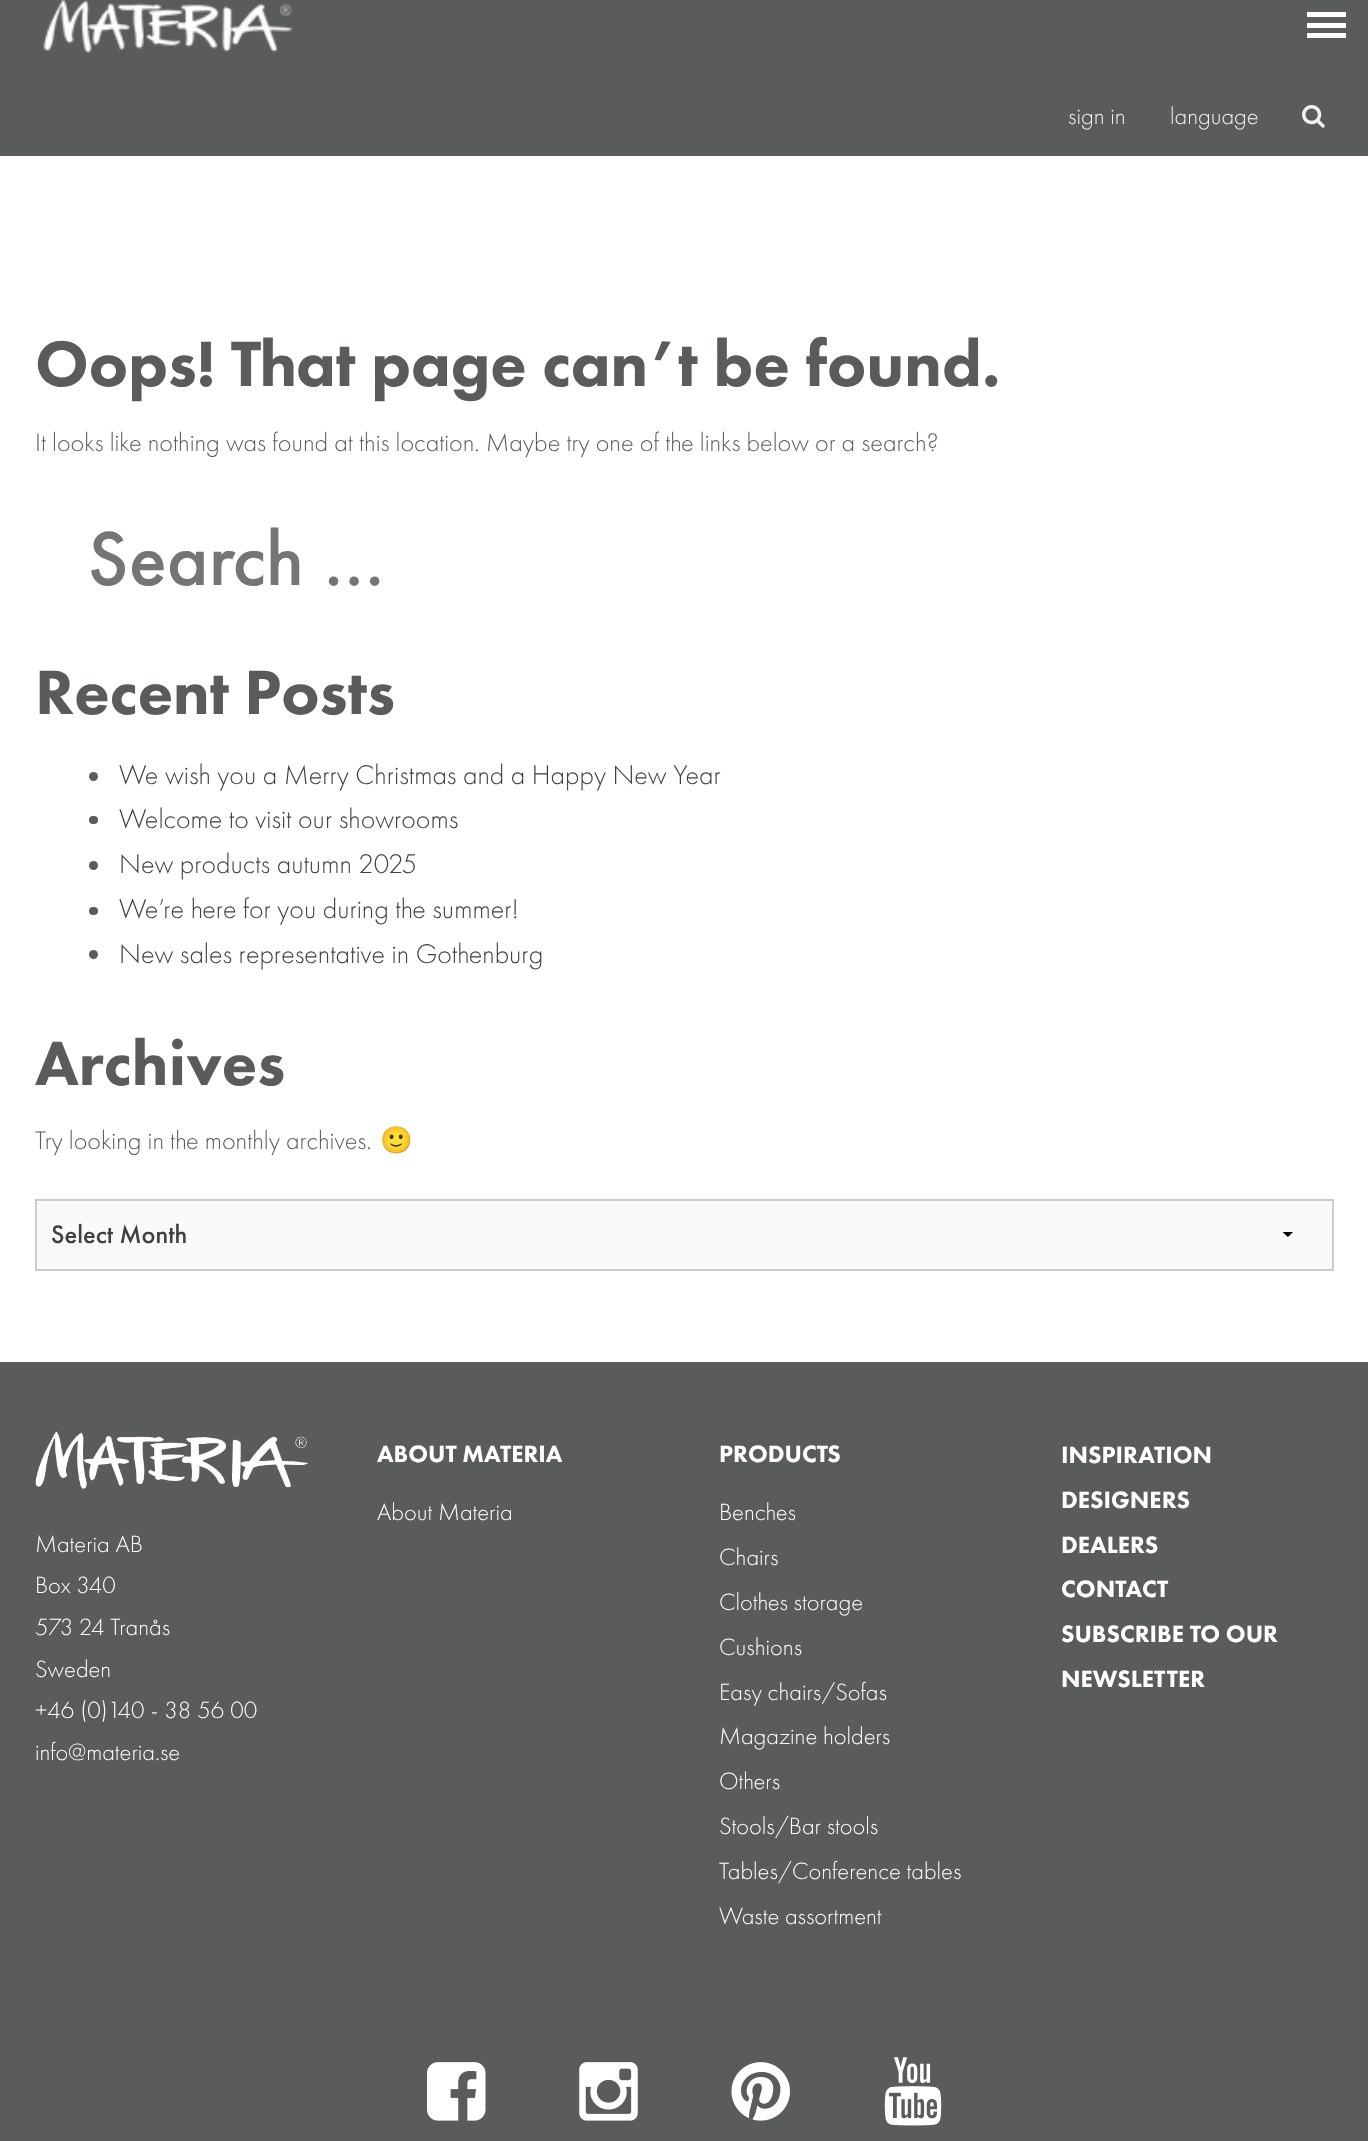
<?xml version="1.0" encoding="UTF-8"?>
<svg xmlns="http://www.w3.org/2000/svg" width="1368" height="2141">
    <rect width="100%" height="100%" fill="#FFFFFF"/>
    <rect x="0" y="0" width="1368" height="156" fill="#5A5B5B"/>
    <image x="43" y="0" width="250" height="53" href="img_01.png"/>
    <rect x="1307" y="12" width="39" height="5" fill="#FFFFFF"/>
    <rect x="1307" y="23" width="39" height="5" fill="#FFFFFF"/>
    <rect x="1307" y="33" width="39" height="5" fill="#FFFFFF"/>
    <text x="1068" y="124" font-family="Futura PT" font-size="24.5" font-weight="300" fill="#F1F1F1">sign in</text>
    <text x="1170" y="124" font-family="Futura PT" font-size="24.5" font-weight="300" fill="#F1F1F1">language</text>
    <image x="1302" y="105" width="23" height="23" href="img_02.png"/>
    <text x="35" y="386" font-family="Futura PT" font-size="66.5" font-weight="900" fill="#5A5B5B">Oops! That page can’t be found.</text>
    <text x="35" y="451" font-family="Futura PT" font-size="26.25" font-weight="300" fill="#5A5B5B">It looks like nothing was found at this location. Maybe try one of the links below or a search?</text>
    <text x="88" y="585" font-family="Futura PT" font-size="79" font-weight="500" fill="#757575">Search …</text>
    <text x="35" y="714" font-family="Futura PT" font-size="64.75" font-weight="900" fill="#5A5B5B">Recent Posts</text>
    <circle cx="93.5" cy="776.5" r="4.5" fill="#5A5B5B"/>
    <text x="119" y="784" font-family="Futura PT" font-size="28" font-weight="300" fill="#404040">We wish you a Merry Christmas and a Happy New Year</text>
    <rect x="89" y="816" width="9" height="8" rx="4" fill="#5A5B5B"/>
    <text x="119" y="828" font-family="Futura PT" font-size="28" font-weight="300" fill="#404040">Welcome to visit our showrooms</text>
    <circle cx="93.5" cy="865.5" r="4.5" fill="#5A5B5B"/>
    <text x="119" y="873" font-family="Futura PT" font-size="28" font-weight="300" fill="#404040">New products autumn 2025</text>
    <rect x="89" y="907" width="9" height="8" rx="4" fill="#5A5B5B"/>
    <text x="119" y="918" font-family="Futura PT" font-size="28" font-weight="300" fill="#404040">We’re here for you during the summer!</text>
    <circle cx="93.5" cy="954.5" r="4.5" fill="#5A5B5B"/>
    <text x="119" y="963" font-family="Futura PT" font-size="28" font-weight="300" fill="#404040">New sales representative in Gothenburg</text>
    <text x="35" y="1085" font-family="Futura PT" font-size="64.75" font-weight="900" fill="#5A5B5B">Archives</text>
    <text x="35" y="1149" font-family="Futura PT" font-size="26.25" font-weight="300" fill="#5A5B5B">Try looking in the monthly archives.</text>
    <text x="380" y="1149" font-family="Noto Color Emoji" font-size="26.25" fill="#5A5B5B">🙂</text>
    <rect x="37" y="1201" width="1295" height="68" fill="#FAFAFA"/>
    <path d="M 1293 1232 L 1288 1237 L 1282.5 1232 Z" fill="#000000"/>
    <rect x="36" y="1200" width="1297" height="70" fill="none" stroke="#CCCCCC" stroke-width="2"/>
    <text x="51" y="1243" font-family="Futura PT" font-size="26.25" font-weight="500" fill="#404040">Select Month</text>
    <rect x="0" y="1362" width="1368" height="779" fill="#5A5B5B"/>
    <image x="35" y="1431" width="273" height="58" href="img_03.png"/>
    <text font-family="Futura PT" font-size="24.5" font-weight="300" fill="#FFFFFF">
        <tspan x="35" y="1552">Materia AB</tspan>
        <tspan x="35" y="1593">Box 340</tspan>
        <tspan x="35" y="1635">573 24 Tranås</tspan>
        <tspan x="35" y="1677">Sweden</tspan>
        <tspan x="35" y="1718" word-spacing="0.5">+46 (0)140 - 38 56 00</tspan>
        <tspan x="35" y="1760">info@materia.se</tspan>
    </text>
    <text x="377" y="1462" font-family="Futura PT" font-size="24.5" font-weight="900" fill="#FFFFFF">ABOUT MATERIA</text>
    <text x="377" y="1520" font-family="Futura PT" font-size="24.5" font-weight="300" fill="#FFFFFF">About Materia</text>
    <text x="719" y="1462" font-family="Futura PT" font-size="24.5" font-weight="900" fill="#FFFFFF">PRODUCTS</text>
    <text font-family="Futura PT" font-size="24.5" font-weight="300" fill="#FFFFFF">
        <tspan x="719" y="1520">Benches</tspan>
        <tspan x="719" y="1565">Chairs</tspan>
        <tspan x="719" y="1610">Clothes storage</tspan>
        <tspan x="719" y="1655">Cushions</tspan>
        <tspan x="719" y="1700">Easy chairs/Sofas</tspan>
        <tspan x="719" y="1744">Magazine holders</tspan>
        <tspan x="719" y="1789">Others</tspan>
        <tspan x="719" y="1834">Stools/Bar stools</tspan>
        <tspan x="719" y="1879">Tables/Conference tables</tspan>
        <tspan x="719" y="1924">Waste assortment</tspan>
    </text>
    <text font-family="Futura PT" font-size="24.5" font-weight="900" fill="#FFFFFF">
        <tspan x="1061" y="1463">INSPIRATION</tspan>
        <tspan x="1061" y="1508">DESIGNERS</tspan>
        <tspan x="1061" y="1553">DEALERS</tspan>
        <tspan x="1061" y="1597">CONTACT</tspan>
        <tspan x="1061" y="1642">SUBSCRIBE TO OUR</tspan>
        <tspan x="1061" y="1687">NEWSLETTER</tspan>
    </text>
    <image x="427" y="2062" width="59" height="59" href="img_04.png"/>
    <image x="579" y="2062" width="59" height="59" href="img_05.png"/>
    <image x="731" y="2062" width="59" height="59" href="img_06.png"/>
    <image x="884" y="2057" width="58" height="69" href="img_07.png"/>
</svg>
